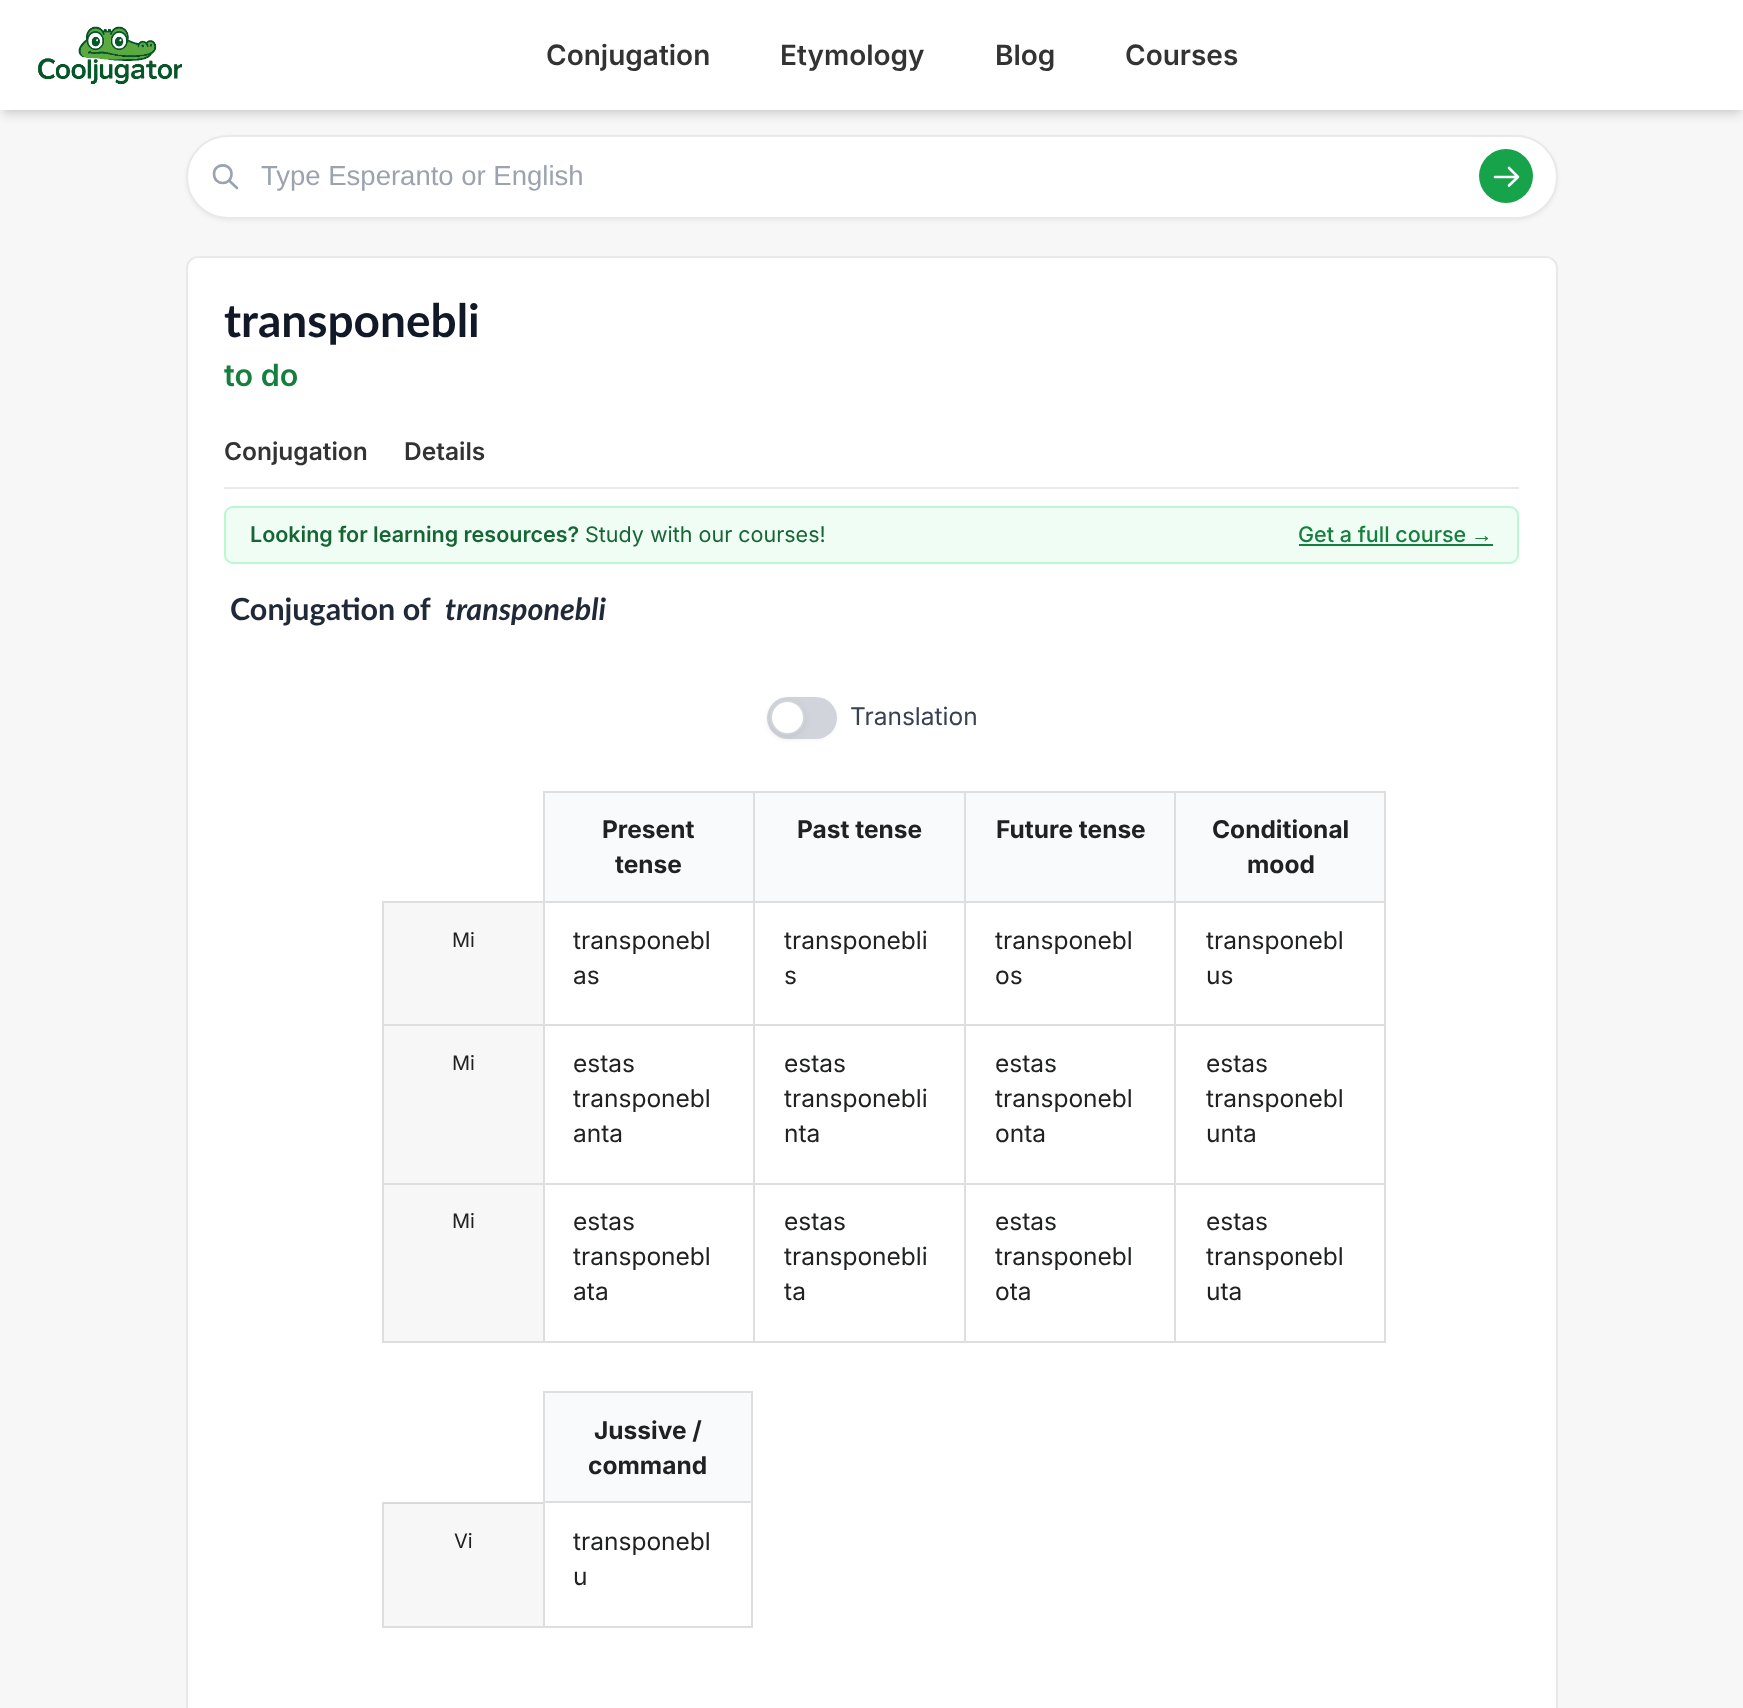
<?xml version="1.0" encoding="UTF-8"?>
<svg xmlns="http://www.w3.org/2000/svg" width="1743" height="1708">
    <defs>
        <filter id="blur1" x="-50%" y="-200%" width="200%" height="500%"><feGaussianBlur stdDeviation="3.5"/></filter>
        <filter id="blur2" x="-50%" y="-200%" width="200%" height="500%"><feGaussianBlur stdDeviation="5"/></filter>
        <filter id="blur3" x="-50%" y="-200%" width="200%" height="500%"><feGaussianBlur stdDeviation="2"/></filter>
    </defs>
    <rect width="100%" height="100%" fill="#F7F7F7"/>
    <rect x="4" y="7" width="1736" height="103" fill="#000000" fill-opacity="0.1" filter="url(#blur1)"/>
    <rect x="2" y="9" width="1739" height="107" fill="#000000" fill-opacity="0.1" filter="url(#blur2)"/>
    <rect x="0" y="0" width="1743" height="110" fill="#FFFFFF"/>
    <image x="38" y="26" width="144" height="59" href="img_01.png"/>
    <text x="546" y="65" font-family="Inter" font-size="28" font-weight="600" fill="#333333">Conjugation</text>
    <text x="780" y="65" font-family="Inter" font-size="28" font-weight="600" fill="#333333">Etymology</text>
    <text x="995" y="65" font-family="Inter" font-size="28" font-weight="600" fill="#333333">Blog</text>
    <text x="1125" y="65" font-family="Inter" font-size="28" font-weight="600" fill="#333333">Courses</text>
    <rect x="186" y="137" width="1372" height="84" rx="42" fill="#000000" fill-opacity="0.05" filter="url(#blur3)"/>
    <rect x="187" y="136" width="1370" height="82" rx="41" fill="#FFFFFF" stroke="#E9E9E9" stroke-width="2"/>
    <path d="M 237 188 L 229 180.5 M 231.5 174 C 231.5 186 214 186 214 174 C 214 162.5 231.5 162.5 231.5 174 Z" fill="none" stroke="#9CA3AF" stroke-width="2.6" stroke-linecap="round" stroke-linejoin="round"/>
    <text x="261" y="185" font-family="Liberation Sans" font-size="27.5" fill="#9CA3AF">Type Esperanto or English</text>
    <circle cx="1506" cy="176" r="27" fill="#16A34A"/>
    <path d="M 1509 168 L 1518 177 M 1518 177 L 1509 185.5 M 1518 177 H 1495" fill="none" stroke="#FFFFFF" stroke-width="2.6" stroke-linecap="round" stroke-linejoin="round"/>
    <rect x="186" y="256" width="1372" height="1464" rx="12" fill="#FFFFFF"/>
    <rect x="384" y="1504" width="159" height="122" fill="#F7F7F7"/>
    <rect x="187" y="257" width="1370" height="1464" rx="11" fill="none" stroke="#E9E9E9" stroke-width="2"/>
    <text x="224" y="337" font-family="Lato" font-size="46" font-weight="700" fill="#111827">transponebli</text>
    <text x="224" y="386" font-family="Inter" font-size="30.5" font-weight="600" fill="#15803D">to do</text>
    <rect x="224" y="487" width="1295" height="2" fill="#E9E9E9"/>
    <text x="224" y="460" font-family="Inter" font-size="24.5" font-weight="600" fill="#333333">Conjugation</text>
    <text x="404" y="460" font-family="Inter" font-size="24.5" font-weight="600" fill="#333333">Details</text>
    <rect x="225" y="507" width="1293" height="56" rx="8" fill="#F0FDF4" stroke="#BBF7D0" stroke-width="2"/>
    <text x="250" y="542" font-family="Inter" font-size="21.5" font-weight="600" fill="#166534">Looking for learning resources?</text>
    <text x="585" y="542" font-family="Inter" font-size="21.5" fill="#166534">Study with our courses!</text>
    <text x="1298" y="542" font-family="Inter" font-size="21.5" font-weight="500" fill="#15803D">Get a full course</text>
    <text x="1471" y="542" font-family="Liberation Sans" font-size="21.5" fill="#15803D">→</text>
    <rect x="1299" y="544" width="194" height="2" fill="#15803D"/>
    <text x="230" y="620" font-family="Lato" font-size="30.5" font-weight="700" fill="#1F2937">Conjugation of</text>
    <text x="445" y="620" font-family="Lato" font-size="30.5" font-weight="700" font-style="italic" fill="#1F2937">transponebli</text>
    <rect x="767" y="698" width="70" height="42" rx="21" fill="#000000" fill-opacity="0.04" filter="url(#blur3)"/>
    <rect x="767" y="697" width="70" height="42" rx="21" fill="#D1D5DB"/>
    <rect x="770" y="702" width="35" height="35" rx="17.5" fill="#000000" fill-opacity="0.08" filter="url(#blur1)"/>
    <circle cx="787.5" cy="717.5" r="16.5" fill="#FFFFFF" stroke="#D1D5DB" stroke-width="2"/>
    <text x="850" y="725" font-family="Inter" font-size="24.5" fill="#374151">Translation</text>
    <rect x="545" y="793" width="208" height="108" fill="#F9FAFB"/>
    <rect x="543" y="791" width="631" height="2" fill="#DEDEDE"/>
    <rect x="382" y="901" width="792" height="2" fill="#DEDEDE"/>
    <rect x="543" y="791" width="2" height="112" fill="#DEDEDE"/>
    <text x="602" y="838" font-family="Inter" font-size="24.5" font-weight="700" fill="#202121">Present</text>
    <text x="615" y="873" font-family="Inter" font-size="24.5" font-weight="700" fill="#202121">tense</text>
    <rect x="755" y="793" width="209" height="108" fill="#F9FAFB"/>
    <rect x="753" y="791" width="2" height="112" fill="#DEDEDE"/>
    <text x="797" y="838" font-family="Inter" font-size="24.5" font-weight="700" fill="#202121">Past tense</text>
    <rect x="966" y="793" width="208" height="108" fill="#F9FAFB"/>
    <rect x="964" y="791" width="2" height="112" fill="#DEDEDE"/>
    <text x="996" y="838" font-family="Inter" font-size="24.5" font-weight="700" fill="#202121">Future tense</text>
    <rect x="1175" y="792" width="210" height="110" fill="#F9FAFB" stroke="#DEDEDE" stroke-width="2"/>
    <text x="1212" y="838" font-family="Inter" font-size="24.5" font-weight="700" fill="#202121">Conditional</text>
    <text x="1247" y="873" font-family="Inter" font-size="24.5" font-weight="700" fill="#202121">mood</text>
    <rect x="384" y="903" width="159" height="121" fill="#F7F7F7"/>
    <rect x="382" y="1024" width="792" height="2" fill="#DEDEDE"/>
    <rect x="382" y="903" width="2" height="123" fill="#DEDEDE"/>
    <text x="452" y="947" font-family="Inter" font-size="20" fill="#202121">Mi</text>
    <rect x="543" y="903" width="2" height="123" fill="#DEDEDE"/>
    <text font-family="Inter" font-size="24.5" fill="#202121">
        <tspan x="573" y="949">transponebl</tspan>
        <tspan x="573" y="984">as</tspan>
    </text>
    <rect x="753" y="903" width="2" height="123" fill="#DEDEDE"/>
    <text font-family="Inter" font-size="24.5" fill="#202121">
        <tspan x="784" y="949">transponebli</tspan>
        <tspan x="784" y="984">s</tspan>
    </text>
    <rect x="964" y="903" width="2" height="123" fill="#DEDEDE"/>
    <text font-family="Inter" font-size="24.5" fill="#202121">
        <tspan x="995" y="949">transponebl</tspan>
        <tspan x="995" y="984">os</tspan>
    </text>
    <rect x="1384" y="903" width="2" height="439" fill="#DEDEDE"/>
    <rect x="1174" y="1024" width="212" height="2" fill="#DEDEDE"/>
    <rect x="1174" y="903" width="2" height="123" fill="#DEDEDE"/>
    <text font-family="Inter" font-size="24.5" fill="#202121">
        <tspan x="1206" y="949">transponebl</tspan>
        <tspan x="1206" y="984">us</tspan>
    </text>
    <rect x="384" y="1026" width="159" height="157" fill="#F7F7F7"/>
    <rect x="382" y="1183" width="1004" height="2" fill="#DEDEDE"/>
    <rect x="382" y="1026" width="2" height="159" fill="#DEDEDE"/>
    <text x="452" y="1070" font-family="Inter" font-size="20" fill="#202121">Mi</text>
    <rect x="543" y="1026" width="2" height="159" fill="#DEDEDE"/>
    <text font-family="Inter" font-size="24.5" fill="#202121">
        <tspan x="573" y="1072">estas</tspan>
        <tspan x="573" y="1107">transponebl</tspan>
        <tspan x="573" y="1142">anta</tspan>
    </text>
    <rect x="753" y="1026" width="2" height="159" fill="#DEDEDE"/>
    <text font-family="Inter" font-size="24.5" fill="#202121">
        <tspan x="784" y="1072">estas</tspan>
        <tspan x="784" y="1107">transponebli</tspan>
        <tspan x="784" y="1142">nta</tspan>
    </text>
    <rect x="964" y="1026" width="2" height="159" fill="#DEDEDE"/>
    <text font-family="Inter" font-size="24.5" fill="#202121">
        <tspan x="995" y="1072">estas</tspan>
        <tspan x="995" y="1107">transponebl</tspan>
        <tspan x="995" y="1142">onta</tspan>
    </text>
    <rect x="1174" y="1026" width="2" height="159" fill="#DEDEDE"/>
    <text font-family="Inter" font-size="24.5" fill="#202121">
        <tspan x="1206" y="1072">estas</tspan>
        <tspan x="1206" y="1107">transponebl</tspan>
        <tspan x="1206" y="1142">unta</tspan>
    </text>
    <rect x="384" y="1185" width="159" height="156" fill="#F7F7F7"/>
    <rect x="382" y="1341" width="1004" height="2" fill="#DEDEDE"/>
    <rect x="382" y="1185" width="2" height="157" fill="#DEDEDE"/>
    <text x="452" y="1228" font-family="Inter" font-size="20" fill="#202121">Mi</text>
    <rect x="543" y="1185" width="2" height="157" fill="#DEDEDE"/>
    <text font-family="Inter" font-size="24.5" fill="#202121">
        <tspan x="573" y="1230">estas</tspan>
        <tspan x="573" y="1265">transponebl</tspan>
        <tspan x="573" y="1300">ata</tspan>
    </text>
    <rect x="753" y="1185" width="2" height="157" fill="#DEDEDE"/>
    <text font-family="Inter" font-size="24.5" fill="#202121">
        <tspan x="784" y="1230">estas</tspan>
        <tspan x="784" y="1265">transponebli</tspan>
        <tspan x="784" y="1300">ta</tspan>
    </text>
    <rect x="964" y="1185" width="2" height="157" fill="#DEDEDE"/>
    <text font-family="Inter" font-size="24.5" fill="#202121">
        <tspan x="995" y="1230">estas</tspan>
        <tspan x="995" y="1265">transponebl</tspan>
        <tspan x="995" y="1300">ota</tspan>
    </text>
    <rect x="1174" y="1185" width="2" height="157" fill="#DEDEDE"/>
    <text font-family="Inter" font-size="24.5" fill="#202121">
        <tspan x="1206" y="1230">estas</tspan>
        <tspan x="1206" y="1265">transponebl</tspan>
        <tspan x="1206" y="1300">uta</tspan>
    </text>
    <rect x="544" y="1392" width="208" height="110" fill="#F9FAFB" stroke="#DEDEDE" stroke-width="2"/>
    <text x="594" y="1439" font-family="Inter" font-size="24.5" font-weight="700" fill="#202121">Jussive /</text>
    <text x="588" y="1474" font-family="Inter" font-size="24.5" font-weight="700" fill="#202121">command</text>
    <rect x="382" y="1502" width="161" height="1" fill="#DEDEDE"/>
    <rect x="383" y="1503" width="160" height="1" fill="#D7D7D7"/>
    <rect x="382" y="1626" width="161" height="2" fill="#DEDEDE"/>
    <rect x="382" y="1503" width="2" height="125" fill="#DEDEDE"/>
    <text x="454" y="1548" font-family="Inter" font-size="20" fill="#202121">Vi</text>
    <rect x="751" y="1503" width="2" height="125" fill="#DEDEDE"/>
    <rect x="543" y="1626" width="210" height="2" fill="#DEDEDE"/>
    <rect x="543" y="1503" width="2" height="125" fill="#DEDEDE"/>
    <text font-family="Inter" font-size="24.5" fill="#202121">
        <tspan x="573" y="1550">transponebl</tspan>
        <tspan x="573" y="1585">u</tspan>
    </text>
</svg>
